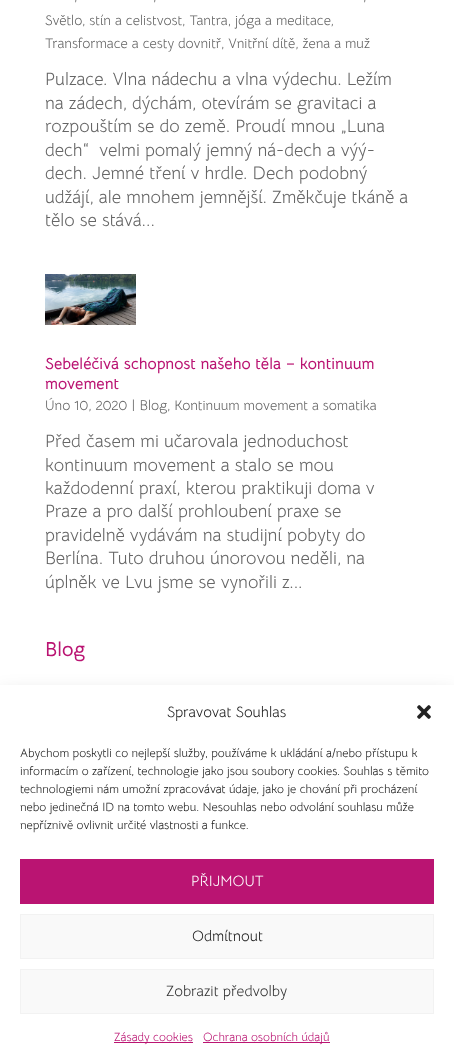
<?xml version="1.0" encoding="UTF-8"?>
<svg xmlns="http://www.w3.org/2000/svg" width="454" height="1063">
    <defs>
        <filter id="blur1" x="-50%" y="-200%" width="200%" height="500%"><feGaussianBlur stdDeviation="10"/></filter>
    </defs>
    <rect width="100%" height="100%" fill="#FFFFFF"/>
    <text x="74" y="1" font-family="Bellota Text" font-size="14" fill="#666666">,</text>
    <text x="153" y="1" font-family="Bellota Text" font-size="14" fill="#666666">,</text>
    <text x="363" y="1" font-family="Bellota Text" font-size="14" fill="#666666">,</text>
    <text font-family="Bellota Text" font-size="14" fill="#666666">
        <tspan x="45" y="25">Světlo, stín a celistvost, Tantra, jóga a meditace,</tspan>
        <tspan x="45" y="48">Transformace a cesty dovnitř, Vnitřní dítě, žena a muž</tspan>
    </text>
    <text font-family="Bellota Text" font-size="18" fill="#666666" xml:space="preserve"><tspan x="45" y="85">Pulzace. Vlna nádechu a vlna výdechu. Ležím</tspan><tspan x="45" y="109">na zádech, dýchám, otevírám se gravitaci a</tspan><tspan x="45" y="132">rozpouštím se do země. Proudí mnou „Luna</tspan><tspan x="45" y="156">dech“  velmi pomalý jemný ná-dech a výý-</tspan><tspan x="45" y="179">dech. Jemné tření v hrdle. Dech podobný</tspan><tspan x="45" y="203">udžájí, ale mnohem jemnější. Změkčuje tkáně a</tspan><tspan x="45" y="226">tělo se stává...</tspan></text>
    <image x="45" y="274" width="91" height="51" href="img_01.png"/>
    <text font-family="Bellota Text" font-size="16" font-weight="700" fill="#BA1472">
        <tspan x="45" y="369">Sebeléčivá schopnost našeho těla – kontinuum</tspan>
        <tspan x="45" y="389">movement</tspan>
    </text>
    <text x="45" y="410" font-family="Bellota Text" font-size="14" fill="#666666">Úno 10, 2020 | Blog, Kontinuum movement a somatika</text>
    <text font-family="Bellota Text" font-size="18" fill="#666666">
        <tspan x="45" y="447">Před časem mi učarovala jednoduchost</tspan>
        <tspan x="45" y="471">kontinuum movement a stalo se mou</tspan>
        <tspan x="45" y="494">každodenní praxí, kterou praktikuji doma v</tspan>
        <tspan x="45" y="517">Praze a pro další prohloubení praxe se</tspan>
        <tspan x="45" y="541">pravidelně vydávám na studijní pobyty do</tspan>
        <tspan x="45" y="564">Berlína. Tuto druhou únorovou neděli, na</tspan>
        <tspan x="45" y="588">úplněk ve Lvu jsme se vynořili z...</tspan>
    </text>
    <text x="45" y="656" font-family="Bellota Text" font-size="20" font-weight="700" fill="#BA1472">Blog</text>
    <rect x="0" y="695" width="454" height="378" fill="#000000" fill-opacity="0.19" filter="url(#blur1)"/>
    <rect x="0" y="685" width="454" height="378" fill="#FFFFFF"/>
    <text x="167" y="717" font-family="Bellota Text" font-size="15" fill="#222222">Spravovat Souhlas</text>
    <image x="417" y="705" width="14" height="14" href="img_02.png"/>
    <text font-family="Bellota Text" font-size="12" fill="#222222">
        <tspan x="20" y="757">Abychom poskytli co nejlepší služby, používáme k ukládání a/nebo přístupu k</tspan>
        <tspan x="20" y="775">informacím o zařízení, technologie jako jsou soubory cookies. Souhlas s těmito</tspan>
        <tspan x="20" y="793">technologiemi nám umožní zpracovávat údaje, jako je chování při procházení</tspan>
        <tspan x="20" y="811">nebo jedinečná ID na tomto webu. Nesouhlas nebo odvolání souhlasu může</tspan>
        <tspan x="20" y="829">nepříznivě ovlivnit určité vlastnosti a funkce.</tspan>
    </text>
    <rect x="20" y="859" width="414" height="45" fill="#BA1472"/>
    <text x="191" y="886" font-family="Bellota Text" font-size="15" fill="#FFFFFF">PŘIJMOUT</text>
    <rect x="20.5" y="914.5" width="413" height="44" fill="#F9F9F9" stroke="#F2F2F2"/>
    <text x="192" y="941" font-family="Bellota Text" font-size="15" fill="#222222">Odmítnout</text>
    <rect x="20.5" y="969.5" width="413" height="44" fill="#F9F9F9" stroke="#F2F2F2"/>
    <text x="166" y="996" font-family="Bellota Text" font-size="15" fill="#333333">Zobrazit předvolby</text>
    <rect x="114" y="1042" width="79" height="1" fill="#BA1472"/>
    <text x="114" y="1041" font-family="Bellota Text" font-size="12" fill="#BA1472">Zásady cookies</text>
    <rect x="203" y="1042" width="127" height="1" fill="#BA1472"/>
    <text x="203" y="1041" font-family="Bellota Text" font-size="12" fill="#BA1472">Ochrana osobních údajů</text>
</svg>
